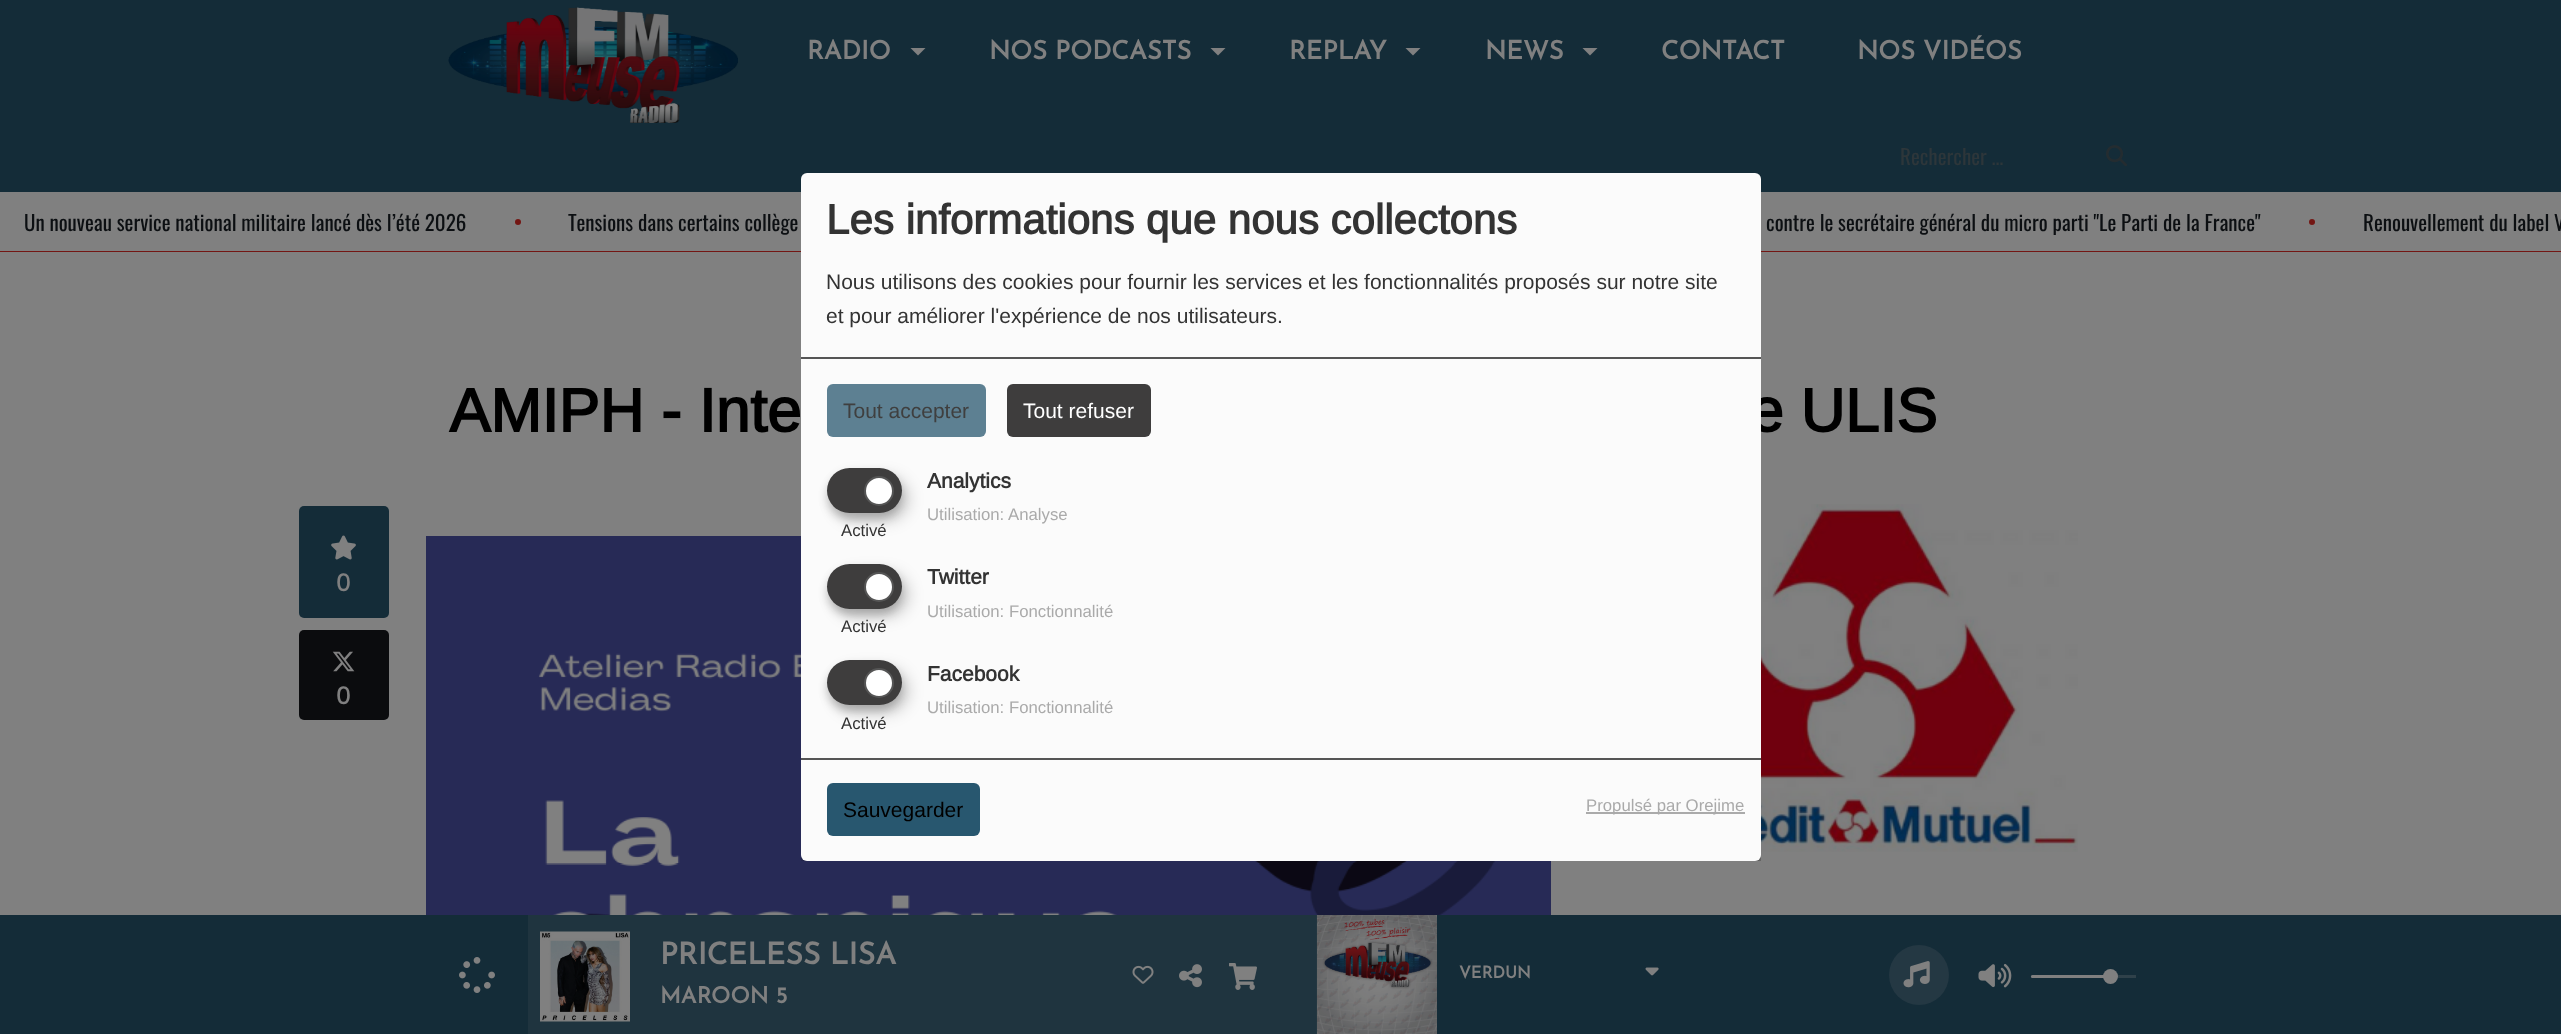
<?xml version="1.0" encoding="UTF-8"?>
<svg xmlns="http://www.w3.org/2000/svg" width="2561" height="1034">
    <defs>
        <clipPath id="clip1"><rect x="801" y="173" width="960" height="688"/></clipPath>
        <filter id="blur1" x="-50%" y="-200%" width="200%" height="500%"><feGaussianBlur stdDeviation="7.5"/></filter>
        <filter id="blur2" x="-50%" y="-200%" width="200%" height="500%"><feGaussianBlur stdDeviation="4.5"/></filter>
    </defs>
    <rect width="100%" height="100%" fill="#808080"/>
    <rect x="0" y="0" width="2561" height="192" fill="#142C38"/>
    <image x="448" y="7" width="290" height="116" href="img_01.png"/>
    <text x="807" y="59" font-family="Josefin Sans" font-size="25.5" font-weight="700" fill="#808080">RADIO</text>
    <path d="M 910.5 48 H 925.5 L 918 55.5 Z" fill="#808080"/>
    <text x="989" y="59" font-family="Josefin Sans" font-size="25.5" font-weight="700" fill="#808080">NOS PODCASTS</text>
    <path d="M 1210.5 48 H 1225.5 L 1218 55.5 Z" fill="#808080"/>
    <text x="1289" y="59" font-family="Josefin Sans" font-size="25.5" font-weight="700" fill="#808080">REPLAY</text>
    <path d="M 1405.5 48 H 1420.5 L 1413 55.5 Z" fill="#808080"/>
    <text x="1485" y="59" font-family="Josefin Sans" font-size="25.5" font-weight="700" fill="#808080">NEWS</text>
    <path d="M 1582.5 48 H 1597.5 L 1590 55.5 Z" fill="#808080"/>
    <text x="1661" y="59" font-family="Josefin Sans" font-size="25.5" font-weight="700" fill="#808080">CONTACT</text>
    <text x="1857" y="59" font-family="Josefin Sans" font-size="25.5" font-weight="700" fill="#808080">NOS VIDÉOS</text>
    <text x="1900" y="165" font-family="Oswald" font-size="21" fill="#2D363A">Rechercher …</text>
    <image x="2106" y="145" width="21" height="21" href="img_02.png"/>
    <rect x="0" y="251" width="2561" height="1" fill="#731613"/>
    <text x="24" y="231" font-family="Oswald" font-size="21" fill="#0C0F12">Un nouveau service national militaire lancé dès l’été 2026</text>
    <circle cx="518" cy="222" r="3" fill="#731613"/>
    <text x="568" y="231" font-family="Oswald" font-size="21" fill="#0C0F12">Tensions dans certains collège</text>
    <text x="1766" y="231" font-family="Oswald" font-size="21" fill="#0C0F12">contre le secrétaire général du micro parti "Le Parti de la France"</text>
    <circle cx="2312" cy="222" r="3" fill="#731613"/>
    <text x="2363" y="231" font-family="Oswald" font-size="21" fill="#0C0F12">Renouvellement du label V</text>
    <rect x="0" y="915" width="2561" height="119" fill="#142C38"/>
    <image x="459" y="957" width="36" height="36" href="img_03.png"/>
    <rect x="528" y="915" width="789" height="119" fill="#1F343F"/>
    <image x="540" y="931" width="90" height="91" href="img_04.png"/>
    <text x="660" y="964" font-family="Josefin Sans" font-size="30" font-weight="700" fill="#808080">PRICELESS LISA</text>
    <text x="660" y="1003" font-family="Josefin Sans" font-size="22.5" font-weight="700" fill="#808080">MAROON 5</text>
    <image x="1132" y="965" width="22" height="19" href="img_05.png"/>
    <image x="1179" y="964" width="23" height="24" href="img_06.png"/>
    <image x="1229" y="963" width="28" height="27" href="img_07.png"/>
    <image x="1316" y="915" width="121" height="119" href="img_08.png"/>
    <text x="1459" y="978" font-family="Josefin Sans" font-size="16.5" font-weight="700" fill="#808080">VERDUN</text>
    <image x="1645" y="967" width="14" height="9" href="img_09.png"/>
    <circle cx="1919" cy="975" r="30" fill="#243843"/>
    <image x="1903" y="961" width="27" height="27" href="img_10.png"/>
    <image x="1978" y="963" width="34" height="25" href="img_11.png"/>
    <rect x="2031" y="975" width="105" height="3" fill="#2F414A"/>
    <rect x="2031" y="975" width="80" height="3" rx="1.5" fill="#808080"/>
    <circle cx="2110.5" cy="976.5" r="7.5" fill="#808080"/>
    <image x="426" y="536" width="1125" height="379" href="img_14.png"/>
    <image x="1761" y="504" width="317" height="348" href="img_15.png"/>
    <g clip-path="url(#clip1)">
        <rect x="809" y="180" width="960" height="689" rx="6" fill="#000000" fill-opacity="0.19" filter="url(#blur1)"/>
        <rect x="801" y="179" width="960" height="688" rx="6" fill="#000000" fill-opacity="0.2" filter="url(#blur2)"/>
    </g>
    <text x="1749" y="432" font-family="Arimo" font-size="61.5" font-weight="700" fill="#000000">e ULIS</text>
    <rect x="801" y="173" width="960" height="688" rx="6" fill="#FBFBFB"/>
    <rect x="801" y="357" width="960" height="2" fill="#555555"/>
    <text x="826" y="234" font-family="Arimo" font-size="42" font-weight="700" fill="#333333">Les informations que nous collectons</text>
    <text font-family="Arimo" font-size="21" fill="#333333">
        <tspan x="826" y="289">Nous utilisons des cookies pour fournir les services et les fonctionnalités proposés sur notre site</tspan>
        <tspan x="826" y="323">et pour améliorer l'expérience de nos utilisateurs.</tspan>
    </text>
    <rect x="827" y="384" width="159" height="53" rx="6" fill="#5D8092"/>
    <text x="843" y="418" font-family="Arimo" font-size="21" fill="#3F3F3F">Tout accepter</text>
    <rect x="1007" y="384" width="144" height="53" rx="6" fill="#3E3D3D"/>
    <text x="1023" y="418" font-family="Arimo" font-size="21" fill="#FFFFFF">Tout refuser</text>
    <text x="927" y="488" font-family="Arimo" font-size="21" font-weight="700" fill="#333333">Analytics</text>
    <rect x="834" y="476" width="75" height="45" rx="22.5" fill="#000000" fill-opacity="0.19" filter="url(#blur1)"/>
    <rect x="827" y="474" width="75" height="45" rx="22.5" fill="#000000" fill-opacity="0.2" filter="url(#blur2)"/>
    <rect x="827" y="468" width="75" height="45" rx="22.5" fill="#3E3D3D"/>
    <circle cx="879" cy="491" r="14" fill="#FFFFFF" stroke="#555555" stroke-width="2"/>
    <text x="841" y="536" font-family="Arimo" font-size="16.75" fill="#333333">Activé</text>
    <text x="927" y="520" font-family="Arimo" font-size="16.75" fill="#AAAAAA">Utilisation: Analyse</text>
    <text x="927" y="584" font-family="Arimo" font-size="21" font-weight="700" fill="#333333">Twitter</text>
    <rect x="834" y="572" width="75" height="45" rx="22.5" fill="#000000" fill-opacity="0.19" filter="url(#blur1)"/>
    <rect x="827" y="570" width="75" height="45" rx="22.5" fill="#000000" fill-opacity="0.2" filter="url(#blur2)"/>
    <rect x="827" y="564" width="75" height="45" rx="22.5" fill="#3E3D3D"/>
    <circle cx="879" cy="587" r="14" fill="#FFFFFF" stroke="#555555" stroke-width="2"/>
    <text x="841" y="632" font-family="Arimo" font-size="16.75" fill="#333333">Activé</text>
    <text x="927" y="617" font-family="Arimo" font-size="16.75" fill="#AAAAAA">Utilisation: Fonctionnalité</text>
    <text x="927" y="681" font-family="Arimo" font-size="21" font-weight="700" fill="#333333">Facebook</text>
    <rect x="834" y="668" width="75" height="45" rx="22.5" fill="#000000" fill-opacity="0.19" filter="url(#blur1)"/>
    <rect x="827" y="666" width="75" height="45" rx="22.5" fill="#000000" fill-opacity="0.2" filter="url(#blur2)"/>
    <rect x="827" y="660" width="75" height="45" rx="22.5" fill="#3E3D3D"/>
    <circle cx="879" cy="683" r="14" fill="#FFFFFF" stroke="#555555" stroke-width="2"/>
    <text x="841" y="729" font-family="Arimo" font-size="16.75" fill="#333333">Activé</text>
    <text x="927" y="713" font-family="Arimo" font-size="16.75" fill="#AAAAAA">Utilisation: Fonctionnalité</text>
    <rect x="801" y="758" width="960" height="2" fill="#555555"/>
    <rect x="827" y="783" width="153" height="53" rx="6" fill="#28576F"/>
    <text x="843" y="817" font-family="Arimo" font-size="21" fill="#000000">Sauvegarder</text>
    <rect x="1586" y="812" width="159" height="2" fill="#AAAAAA"/>
    <text x="1586" y="811" font-family="Arimo" font-size="16.75" fill="#AAAAAA">Propulsé par Orejime</text>
    <text x="449" y="432" font-family="Arimo" font-size="61.5" font-weight="700" fill="#000000">AMIPH - Inte</text>
    <rect x="299" y="506" width="90" height="112" rx="5" fill="#142C38"/>
    <image x="331" y="535" width="25" height="25" href="img_12.png"/>
    <text x="336" y="591" font-family="Nunito" font-size="24" font-weight="700" fill="#808080">0</text>
    <rect x="299" y="630" width="90" height="90" rx="5" fill="#0B0C0E"/>
    <image x="332" y="651" width="23" height="21" href="img_13.png"/>
    <text x="336" y="704" font-family="Nunito" font-size="24" font-weight="700" fill="#808080">0</text>
</svg>
